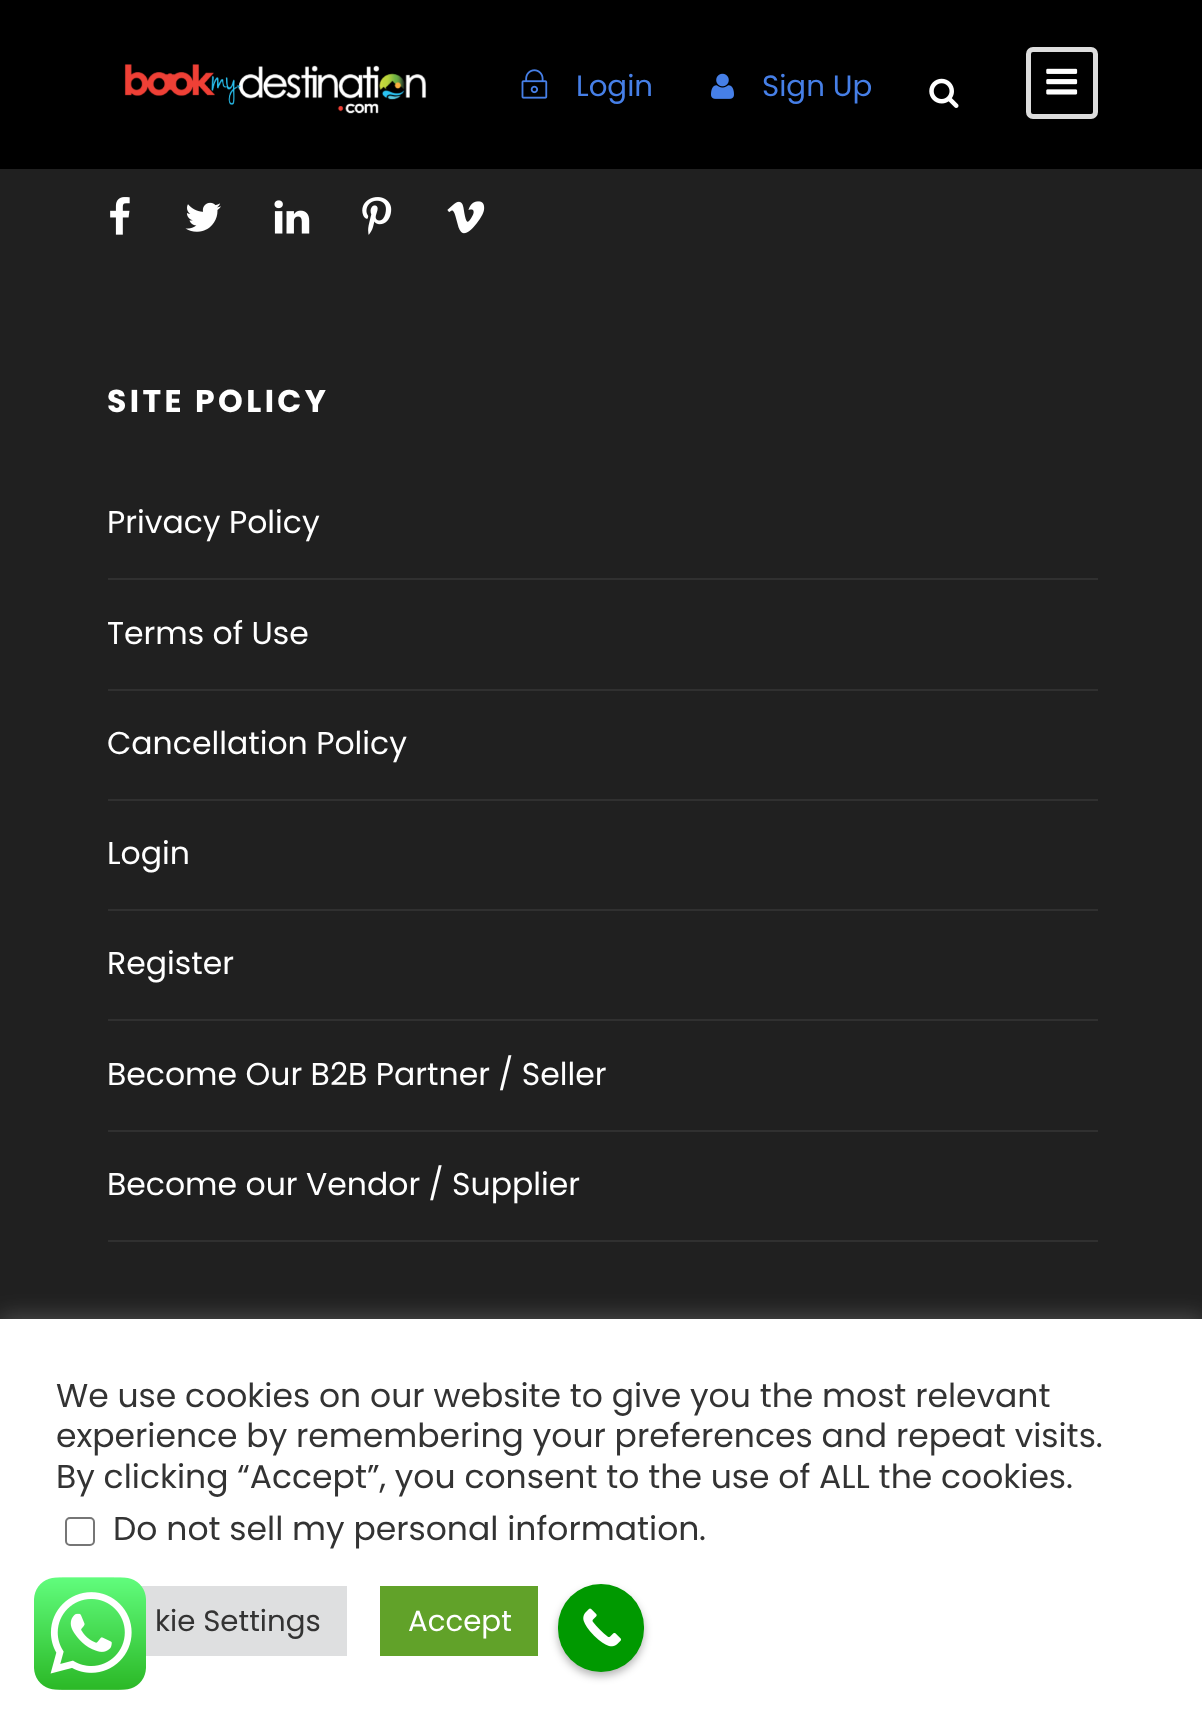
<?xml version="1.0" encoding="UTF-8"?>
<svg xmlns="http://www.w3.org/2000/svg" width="1202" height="1723">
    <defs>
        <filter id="blur1" x="-50%" y="-200%" width="200%" height="500%"><feGaussianBlur stdDeviation="11"/></filter>
        <filter id="blur2" x="-50%" y="-200%" width="200%" height="500%"><feGaussianBlur stdDeviation="4.5"/></filter>
    </defs>
    <rect width="100%" height="100%" fill="#202020"/>
    <rect x="0" y="0" width="1202" height="169" fill="#000000"/>
    <image x="124" y="64" width="303" height="50" href="img_01.png"/>
    <image x="521" y="69" width="27" height="30" href="img_02.png"/>
    <text x="576" y="96" font-family="Poppins" font-size="29.25" fill="#467FE7">Login</text>
    <image x="711" y="73" width="23" height="26" href="img_03.png"/>
    <text x="762" y="96" font-family="Poppins" font-size="29.25" fill="#467FE7">Sign Up</text>
    <image x="929" y="78" width="30" height="30" href="img_04.png"/>
    <rect x="1028.5" y="49.5" width="67" height="67" rx="4.5" fill="none" stroke="#DDDDDD" stroke-width="5"/>
    <image x="1046" y="68" width="32" height="27" href="img_05.png"/>
    <image x="110" y="197" width="20" height="38" href="img_06.png"/>
    <image x="185" y="202" width="36" height="30" href="img_07.png"/>
    <image x="274" y="200" width="36" height="34" href="img_08.png"/>
    <image x="362" y="197" width="30" height="38" href="img_09.png"/>
    <image x="447" y="201" width="38" height="33" href="img_10.png"/>
    <text x="107" y="412" font-family="Poppins" font-size="31.5" font-weight="700" letter-spacing="3.4" fill="#FFFFFF">SITE POLICY</text>
    <rect x="108" y="578" width="990" height="2" fill="#303030"/>
    <text x="107" y="533" font-family="Poppins" font-size="31.5" fill="#FFFFFF">Privacy Policy</text>
    <rect x="108" y="689" width="990" height="2" fill="#303030"/>
    <text x="107" y="644" font-family="Poppins" font-size="31.5" fill="#FFFFFF">Terms of Use</text>
    <rect x="108" y="799" width="990" height="2" fill="#303030"/>
    <text x="107" y="754" font-family="Poppins" font-size="31.5" fill="#FFFFFF">Cancellation Policy</text>
    <rect x="108" y="909" width="990" height="2" fill="#303030"/>
    <text x="107" y="864" font-family="Poppins" font-size="31.5" fill="#FFFFFF">Login</text>
    <rect x="108" y="1019" width="990" height="2" fill="#303030"/>
    <text x="107" y="974" font-family="Poppins" font-size="31.5" fill="#FFFFFF">Register</text>
    <rect x="108" y="1130" width="990" height="2" fill="#303030"/>
    <text x="107" y="1085" font-family="Poppins" font-size="31.5" fill="#FFFFFF">Become Our B2B Partner / Seller</text>
    <rect x="108" y="1240" width="990" height="2" fill="#303030"/>
    <text x="107" y="1195" font-family="Poppins" font-size="31.5" fill="#FFFFFF">Become our Vendor / Supplier</text>
    <rect x="0" y="1316" width="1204" height="405" fill="#ACABAB" fill-opacity="0.3" filter="url(#blur1)"/>
    <rect x="0" y="1319" width="1202" height="404" fill="#FFFFFF"/>
    <text font-family="Poppins" font-size="33" fill="#333333">
        <tspan x="56" y="1407">We use cookies on our website to give you the most relevant</tspan>
        <tspan x="56" y="1447">experience by remembering your preferences and repeat visits.</tspan>
        <tspan x="56" y="1488">By clicking “Accept”, you consent to the use of ALL the cookies.</tspan>
    </text>
    <rect x="66" y="1518" width="28" height="27" rx="4" fill="none" stroke="#767676" stroke-width="2"/>
    <text x="113" y="1540" font-family="Poppins" font-size="33" fill="#333333">Do not sell my personal information</text>
    <text x="699" y="1540" font-family="Poppins" font-size="33" fill="#333333">.</text>
    <rect x="141" y="1586" width="206" height="70" fill="#DEDFE0"/>
    <text x="155" y="1631" font-family="Poppins" font-size="29.25" fill="#333333">kie Settings</text>
    <rect x="380" y="1586" width="158" height="70" fill="#61A229"/>
    <text x="408" y="1631" font-family="Poppins" font-size="29.25" fill="#FFFFFF">Accept</text>
    <image x="34" y="1577" width="112" height="113" href="img_11.png"/>
    <rect x="558" y="1589" width="86" height="87" rx="43" fill="#000000" fill-opacity="0.3" filter="url(#blur2)"/>
    <rect x="558" y="1584" width="86" height="88" rx="43" fill="#009900"/>
    <image x="583" y="1608" width="38" height="39" href="img_12.png"/>
</svg>
